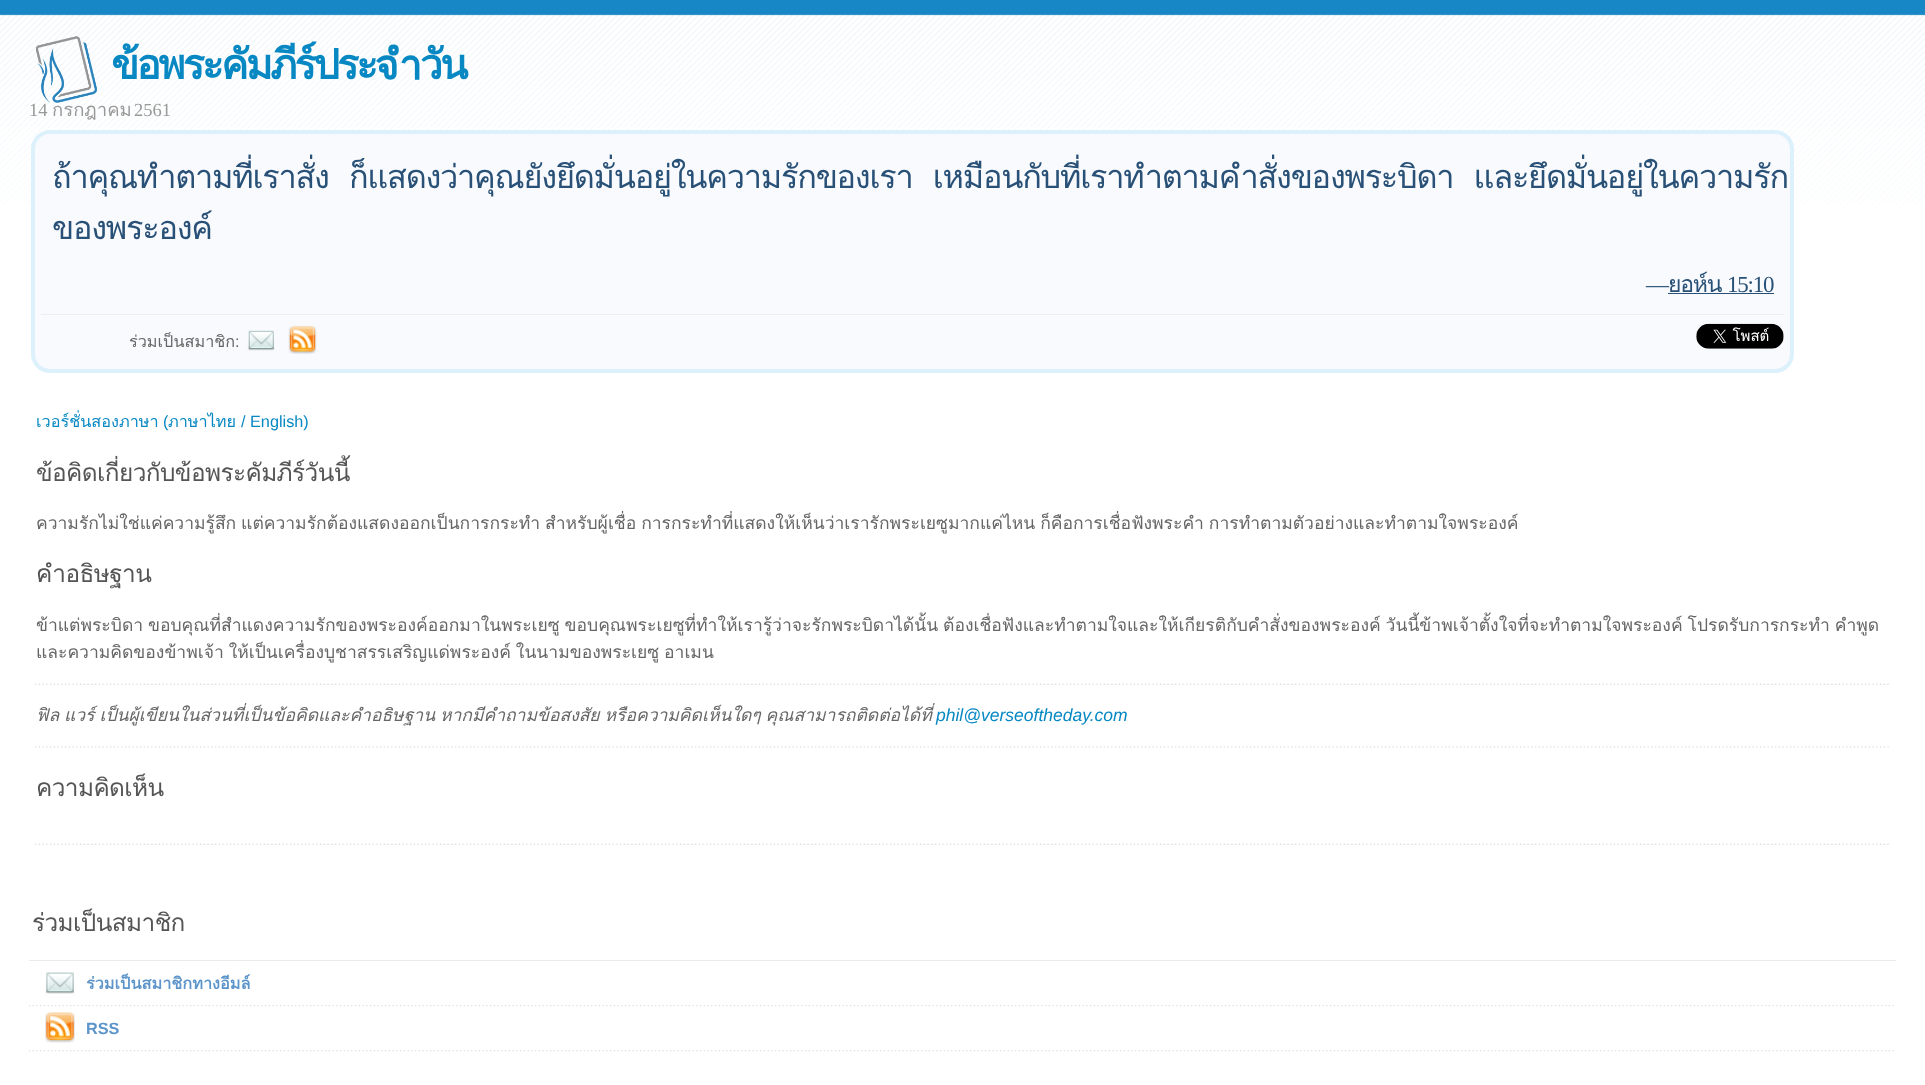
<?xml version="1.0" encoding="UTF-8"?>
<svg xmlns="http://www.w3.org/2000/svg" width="1925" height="1085">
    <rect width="100%" height="100%" fill="#FFFFFF"/>
    <image x="0" y="0" width="1925" height="205" href="img_01.png"/>
    <image x="35" y="36" width="62" height="67" href="img_02.png"/>
    <text x="111" y="79" font-family="Loma" font-size="41.25" font-weight="700" letter-spacing="-2.9" fill="#0788C3">ข้อพระคัมภีร์ประจำวัน</text>
    <text x="29" y="116" font-family="Liberation Serif" font-size="18.5" fill="#999999">14</text>
    <text x="52" y="116" font-family="Loma" font-size="18.5" fill="#999999">กรกฎาคม</text>
    <text x="134" y="116" font-family="Liberation Serif" font-size="18.5" fill="#999999">2561</text>
    <rect x="33" y="132" width="1759" height="239" rx="17" fill="#F8FAFD" stroke="#DCF1FB" stroke-width="4"/>
    <text font-family="Loma" font-size="32.5" letter-spacing="-1.25" fill="#295177">
        <tspan x="52" y="188" word-spacing="10.5">ถ้าคุณทำตามที่เราสั่ง ก็แสดงว่าคุณยังยึดมั่นอยู่ในความรักของเรา เหมือนกับที่เราทำตามคำสั่งของพระบิดา และยึดมั่นอยู่ในความรัก</tspan>
        <tspan x="52" y="239">ของพระองค์</tspan>
    </text>
    <text x="1646" y="292" font-family="Liberation Serif" font-size="23" letter-spacing="-1.25" fill="#295177">—</text>
    <text x="1668" y="292" font-family="Loma" font-size="23" letter-spacing="-1.25" fill="#295177">ยอห์น</text>
    <text x="1727" y="292" font-family="Liberation Serif" font-size="23" letter-spacing="-1.25" fill="#295177">15:10</text>
    <rect x="1668" y="293" width="106" height="1" fill="#295177"/>
    <rect x="41" y="314" width="1743" height="1" fill="#EEEEEE"/>
    <text x="129" y="347" font-family="Loma" font-size="16.25" fill="#666666">ร่วมเป็นสมาชิก</text>
    <text x="235" y="347" font-family="Liberation Sans" font-size="16.25" fill="#666666">:</text>
    <image x="247" y="330" width="28" height="21" href="img_03.png"/>
    <image x="288" y="326" width="29" height="28" href="img_04.png"/>
    <image x="1696" y="323" width="88" height="26" href="img_05.png"/>
    <text x="36" y="427" font-family="Loma" font-size="16.25" fill="#0788C3">เวอร์ชั่นสองภาษา</text>
    <text x="163" y="427" font-family="Liberation Sans" font-size="16.25" fill="#0788C3">(</text>
    <text x="168" y="427" font-family="Loma" font-size="16.25" fill="#0788C3">ภาษาไทย</text>
    <text x="241" y="427" font-family="Liberation Sans" font-size="16.25" fill="#0788C3">/ English)</text>
    <image x="35" y="683" width="1854" height="2" href="img_06.png"/>
    <text x="36" y="481" font-family="Loma" font-size="24.4" letter-spacing="-0.6" fill="#555555">ข้อคิดเกี่ยวกับข้อพระคัมภีร์วันนี้</text>
    <text x="36" y="529" word-spacing="-1" font-family="Loma" font-size="17.5" fill="#666666">ความรักไม่ใช่แค่ความรู้สึก แต่ความรักต้องแสดงออกเป็นการกระทำ สำหรับผู้เชื่อ การกระทำที่แสดงให้เห็นว่าเรารักพระเยซูมากแค่ไหน ก็คือการเชื่อฟังพระคำ การทำตามตัวอย่างและทำตามใจพระองค์</text>
    <text x="36" y="582" font-family="Loma" font-size="24.4" letter-spacing="-0.6" fill="#555555">คำอธิษฐาน</text>
    <text font-family="Loma" font-size="17.5" fill="#666666">
        <tspan x="36" y="631" word-spacing="-1">ข้าแต่พระบิดา ขอบคุณที่สำแดงความรักของพระองค์ออกมาในพระเยซู ขอบคุณพระเยซูที่ทำให้เรารู้ว่าจะรักพระบิดาได้นั้น ต้องเชื่อฟังและทำตามใจและให้เกียรติกับคำสั่งของพระองค์ วันนี้ข้าพเจ้าตั้งใจที่จะทำตามใจพระองค์ โปรดรับการกระทำ คำพูด</tspan>
        <tspan x="36" y="658" word-spacing="-1">และความคิดของข้าพเจ้า ให้เป็นเครื่องบูชาสรรเสริญแด่พระองค์ ในนามของพระเยซู อาเมน</tspan>
    </text>
    <image x="35" y="746" width="1854" height="2" href="img_07.png"/>
    <text x="36" y="721" word-spacing="-1" font-family="Loma" font-size="17.5" font-style="italic" fill="#666666">ฟิล แวร์ เป็นผู้เขียนในส่วนที่เป็นข้อคิดและคำอธิษฐาน หากมีคำถามข้อสงสัย หรือความคิดเห็นใดๆ คุณสามารถติดต่อได้ที่</text>
    <text x="936" y="721" font-family="Liberation Sans" font-size="17.5" font-style="italic" fill="#0788C3">phil@verseoftheday.com</text>
    <image x="35" y="843" width="1854" height="2" href="img_06.png"/>
    <text x="36" y="796" font-family="Loma" font-size="24.4" letter-spacing="-0.6" fill="#555555">ความคิดเห็น</text>
    <text x="32" y="931" font-family="Loma" font-size="24.4" letter-spacing="-0.6" fill="#555555">ร่วมเป็นสมาชิก</text>
    <rect x="29" y="960" width="1867" height="1" fill="#EBEBEB"/>
    <image x="29" y="1005" width="1868" height="2" href="img_08.png"/>
    <image x="45" y="972" width="30" height="22" href="img_09.png"/>
    <text x="86" y="989" font-family="Loma" font-size="16.25" font-weight="700" fill="#5D95CA">ร่วมเป็นสมาชิกทางอีมล์</text>
    <image x="29" y="1050" width="1868" height="2" href="img_08.png"/>
    <image x="45" y="1012" width="30" height="31" href="img_10.png"/>
    <text x="86" y="1034" font-family="Liberation Sans" font-size="16.25" font-weight="700" fill="#5D95CA">RSS</text>
</svg>
